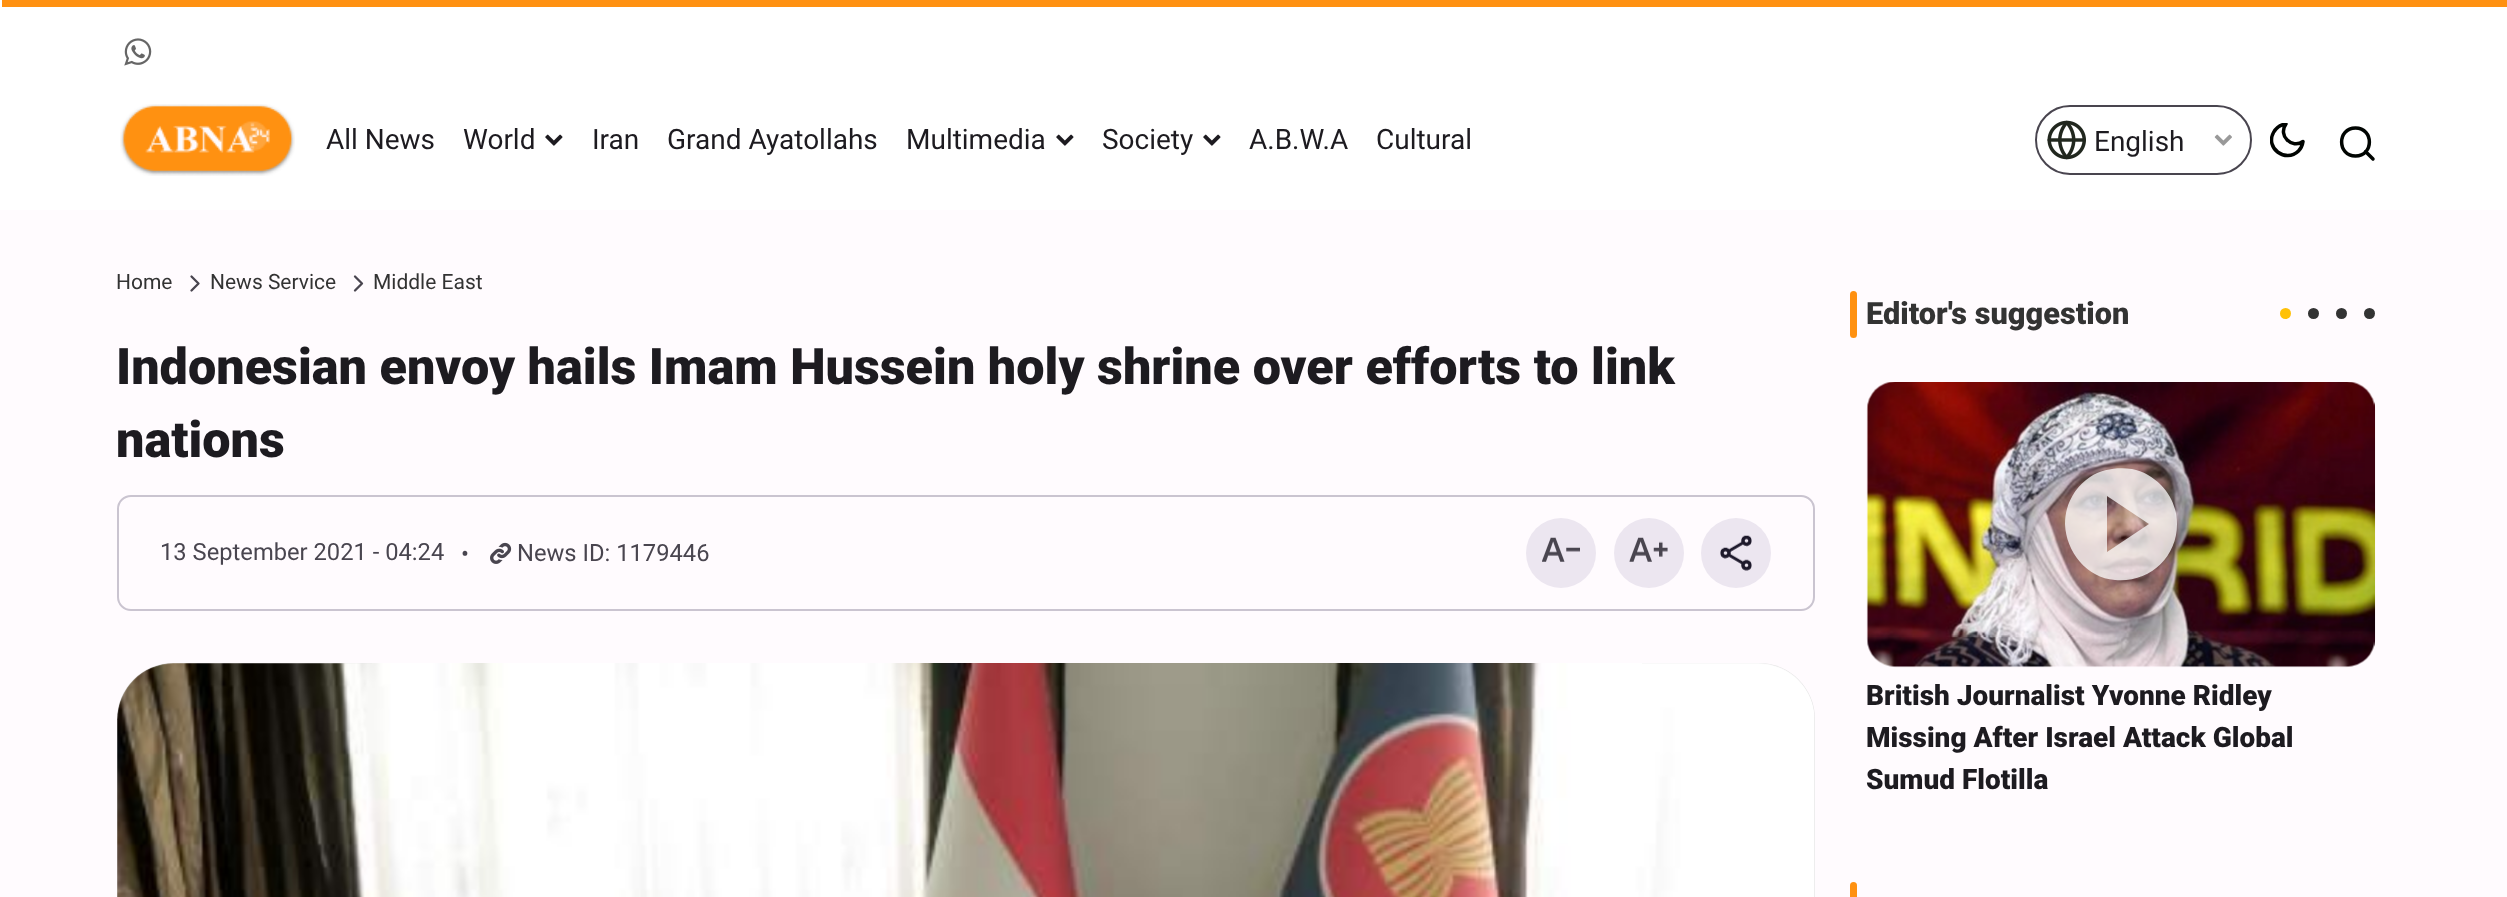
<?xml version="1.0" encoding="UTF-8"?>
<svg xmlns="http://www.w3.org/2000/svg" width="2507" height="897">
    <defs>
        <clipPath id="clip1"><rect x="2270" y="123" width="35" height="35"/></clipPath>
    </defs>
    <rect width="100%" height="100%" fill="#FFFBFE"/>
    <rect x="0" y="0" width="2507" height="210" fill="#FFFFFF"/>
    <rect x="2" y="0" width="2505" height="7" fill="#FF9111"/>
    <image x="124" y="38" width="28" height="28" href="img_01.png"/>
    <image x="120" y="104" width="175" height="72" href="img_02.png"/>
    <text x="326" y="149" font-family="Roboto" font-size="28" fill="#1D1B20">All News</text>
    <text x="463" y="149" font-family="Roboto" font-size="28" fill="#1D1B20">World</text>
    <image x="545" y="134" width="18" height="12" href="img_03.png"/>
    <text x="592" y="149" font-family="Roboto" font-size="28" fill="#1D1B20">Iran</text>
    <text x="667" y="149" font-family="Roboto" font-size="28" fill="#1D1B20">Grand Ayatollahs</text>
    <text x="906" y="149" font-family="Roboto" font-size="28" fill="#1D1B20">Multimedia</text>
    <image x="1056" y="134" width="18" height="12" href="img_03.png"/>
    <text x="1102" y="149" font-family="Roboto" font-size="28" fill="#1D1B20">Society</text>
    <image x="1203" y="134" width="18" height="12" href="img_03.png"/>
    <text x="1249" y="149" font-family="Roboto" font-size="28" fill="#1D1B20">A.B.W.A</text>
    <text x="1376" y="149" font-family="Roboto" font-size="28" fill="#1D1B20">Cultural</text>
    <rect x="2036" y="106" width="215" height="68" rx="34" fill="none" stroke="#49454F" stroke-width="2"/>
    <image x="2047" y="120" width="39" height="40" href="img_04.png"/>
    <text x="2094" y="151" font-family="Roboto" font-size="28" fill="#1D1B20">English</text>
    <image x="2214" y="134" width="18" height="12" href="img_05.png"/>
    <g clip-path="url(#clip1)">
        <path d="M 2303 141.5 C 2302.5 145 2301 148.5 2298.5 151 C 2285.5 163.5 2265 148 2273.5 132.5 C 2276 128 2280.5 124.5 2286 124 C 2277.5 135.5 2292 149.5 2303 141.5 Z" fill="none" stroke="#000401" stroke-width="3.5" stroke-linecap="round" stroke-linejoin="round"/>
    </g>
    <path d="M 2355.5 156 C 2374 156 2374 128 2355.5 128 C 2337 128 2337 156 2355.5 156 Z M 2373 159 L 2365.5 151.5" fill="none" stroke="#000401" stroke-width="3.5" stroke-linecap="round" stroke-linejoin="round"/>
    <text x="116" y="289" font-family="Roboto" font-size="21" fill="#333333">Home</text>
    <path d="M 191.5 276.5 L 198.5 283.5 L 191.5 290.5" fill="none" stroke="#49454F" stroke-width="2.3" stroke-linecap="round" stroke-linejoin="round"/>
    <text x="210" y="289" font-family="Roboto" font-size="21" fill="#333333">News Service</text>
    <path d="M 355 276.5 L 362 283.5 L 355 290.5" fill="none" stroke="#49454F" stroke-width="2.3" stroke-linecap="round" stroke-linejoin="round"/>
    <text x="373" y="289" font-family="Roboto" font-size="21" fill="#333333">Middle East</text>
    <text font-family="Roboto" font-size="50.4" font-weight="900" fill="#1D1B20">
        <tspan x="116" y="384">Indonesian envoy hails Imam Hussein holy shrine over efforts to link</tspan>
        <tspan x="116" y="457">nations</tspan>
    </text>
    <rect x="118" y="496" width="1696" height="114" rx="13" fill="none" stroke="#CAC4D0" stroke-width="2"/>
    <text x="160" y="560" font-family="Roboto" font-size="23.75" fill="#49454F">13 September 2021 - 04:24</text>
    <text x="461" y="562" font-family="Roboto" font-size="23.75" fill="#49454F">•</text>
    <image x="490" y="542" width="22" height="22" href="img_06.png"/>
    <text x="517" y="561" font-family="Roboto" font-size="23.75" fill="#49454F">News ID: 1179446</text>
    <circle cx="1561" cy="553" r="35" fill="#ECE6F0"/>
    <image x="1542" y="537" width="38" height="25" href="img_07.png"/>
    <circle cx="1649" cy="553" r="35" fill="#ECE6F0"/>
    <image x="1629" y="537" width="39" height="25" href="img_08.png"/>
    <circle cx="1736" cy="553" r="35" fill="#ECE6F0"/>
    <image x="1720" y="535" width="32" height="36" href="img_09.png"/>
    <rect x="117" y="663" width="1698" height="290" rx="56" fill="#E5E5E5"/>
    <image x="117" y="663" width="1698" height="234" href="img_10.png"/>
    <rect x="1850" y="291" width="7" height="47" rx="3.5" fill="#FF9111"/>
    <text x="1866" y="324" font-family="Roboto" font-size="30.75" font-weight="900" fill="#333333">Editor's suggestion</text>
    <circle cx="2285.5" cy="313.5" r="5.5" fill="#FFC107"/>
    <circle cx="2313.5" cy="313.5" r="5.5" fill="#333333"/>
    <circle cx="2341.5" cy="313.5" r="5.5" fill="#333333"/>
    <circle cx="2369.5" cy="313.5" r="5.5" fill="#333333"/>
    <image x="1866" y="382" width="510" height="286" href="img_11.png"/>
    <path d="M 2065 524 C 2065 505 2074 488 2090 477 C 2102 469 2118 467 2132 469 C 2143 471 2153 477 2161 485 C 2171 495 2177 509 2177 524 C 2177 558 2149 583 2115 580 C 2087 578 2066 552 2065 524 Z M 2107 552 L 2149 524 L 2107 496 Z" fill="#FFFFFF" fill-opacity="0.75"/>
    <text font-family="Roboto" font-size="28" font-weight="900" fill="#1D1B20">
        <tspan x="1866" y="705">British Journalist Yvonne Ridley</tspan>
        <tspan x="1866" y="747">Missing After Israel Attack Global</tspan>
        <tspan x="1866" y="789">Sumud Flotilla</tspan>
    </text>
    <rect x="1850" y="882" width="7" height="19" rx="3.5" fill="#FF9111"/>
</svg>
